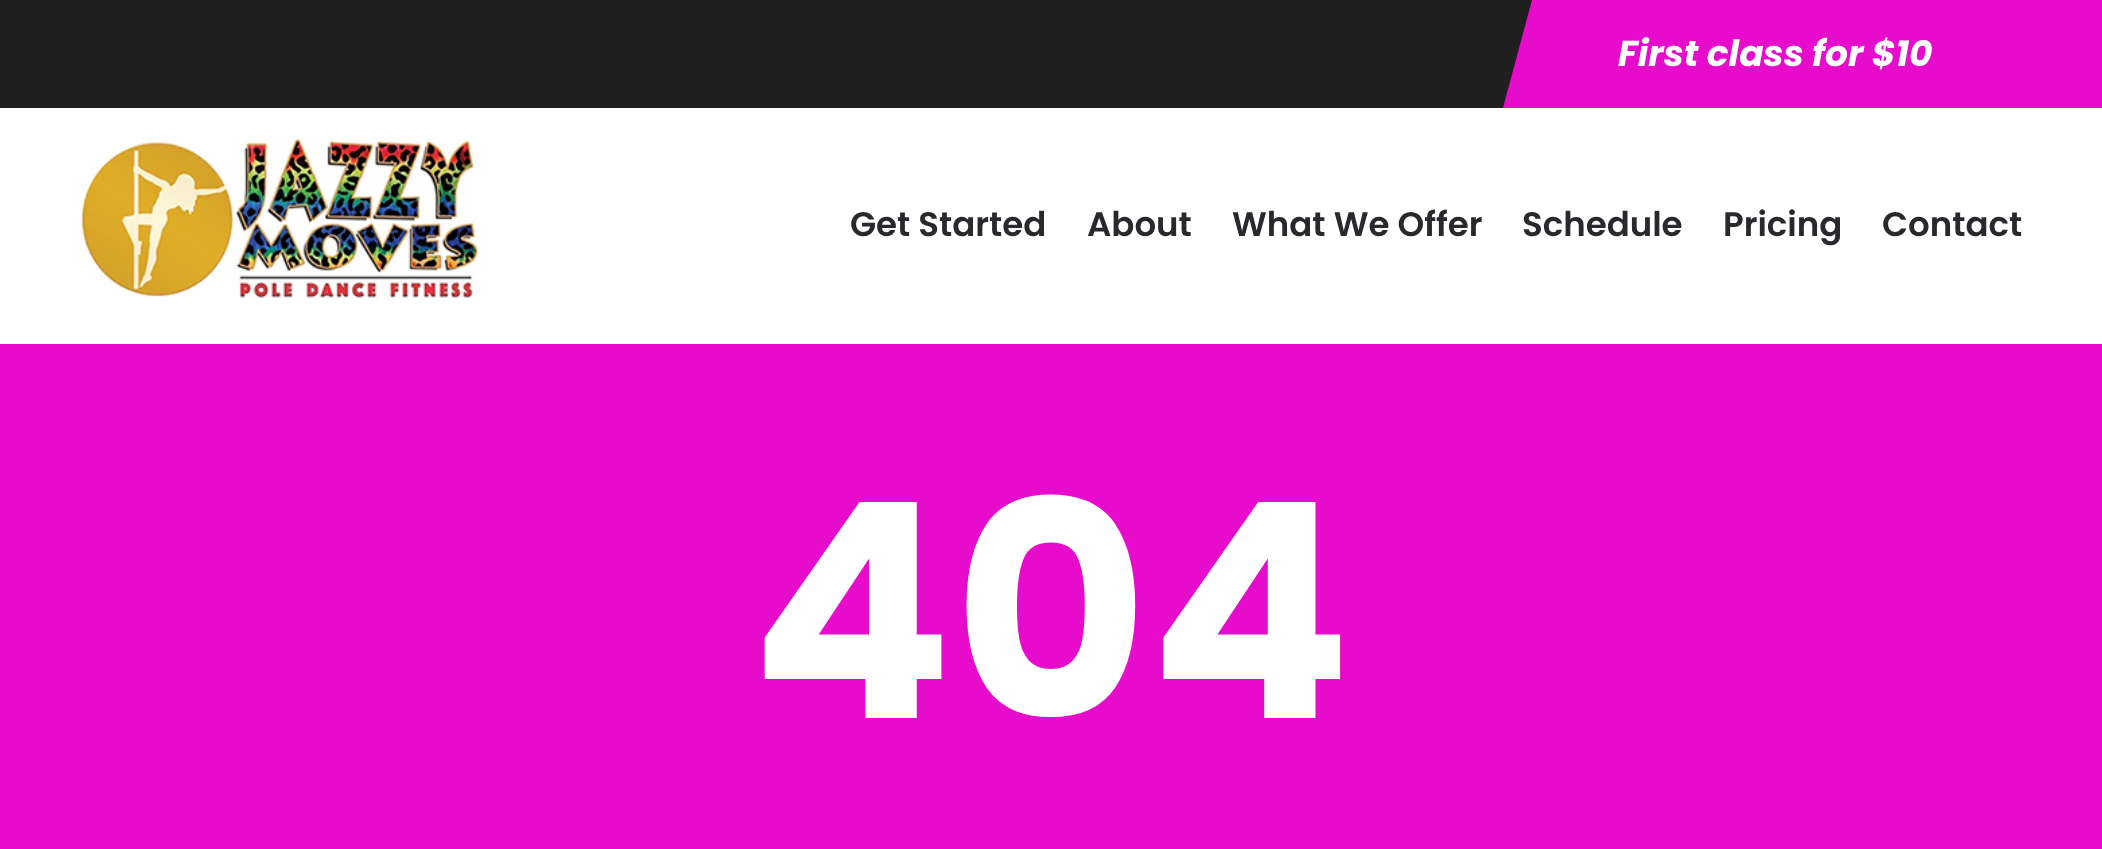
<?xml version="1.0" encoding="UTF-8"?>
<svg xmlns="http://www.w3.org/2000/svg" width="2102" height="849">
    <defs>
        <linearGradient id="g1" gradientUnits="userSpaceOnUse" x1="-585" y1="54" x2="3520" y2="54"><stop offset="0" stop-color="#1F1F1F"/><stop offset="0.5" stop-color="#444444"/><stop offset="0.5" stop-color="#E70BCB"/><stop offset="1" stop-color="#E70BCB"/></linearGradient>
    </defs>
    <rect width="100%" height="100%" fill="#FFFFFF"/>
    <rect x="0" y="0" width="1532" height="108" fill="#1F1F1F"/>
    <path d="M 1532 0 H 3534 L 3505 108 H 1503 Z" fill="url(#g1)"/>
    <text x="1618" y="66" font-family="Poppins" font-size="36" font-weight="700" font-style="italic" fill="#FFFFFF">First class for $10</text>
    <image x="80" y="138" width="399" height="162" href="img_01.png"/>
    <text x="850" y="236" font-family="Poppins" font-size="34" font-weight="600" fill="#28292C">Get Started</text>
    <text x="1087" y="236" font-family="Poppins" font-size="34" font-weight="600" fill="#28292C">About</text>
    <text x="1232" y="236" font-family="Poppins" font-size="34" font-weight="600" fill="#28292C">What We Offer</text>
    <text x="1522" y="236" font-family="Poppins" font-size="34" font-weight="600" fill="#28292C">Schedule</text>
    <text x="1723" y="236" font-family="Poppins" font-size="34" font-weight="600" fill="#28292C">Pricing</text>
    <text x="1882" y="236" font-family="Poppins" font-size="34" font-weight="600" fill="#28292C">Contact</text>
    <rect x="0" y="344" width="2102" height="505" fill="#E70BCB"/>
    <text x="750" y="718" font-family="Poppins" font-size="300" font-weight="700" fill="#FFFFFF">404</text>
</svg>
